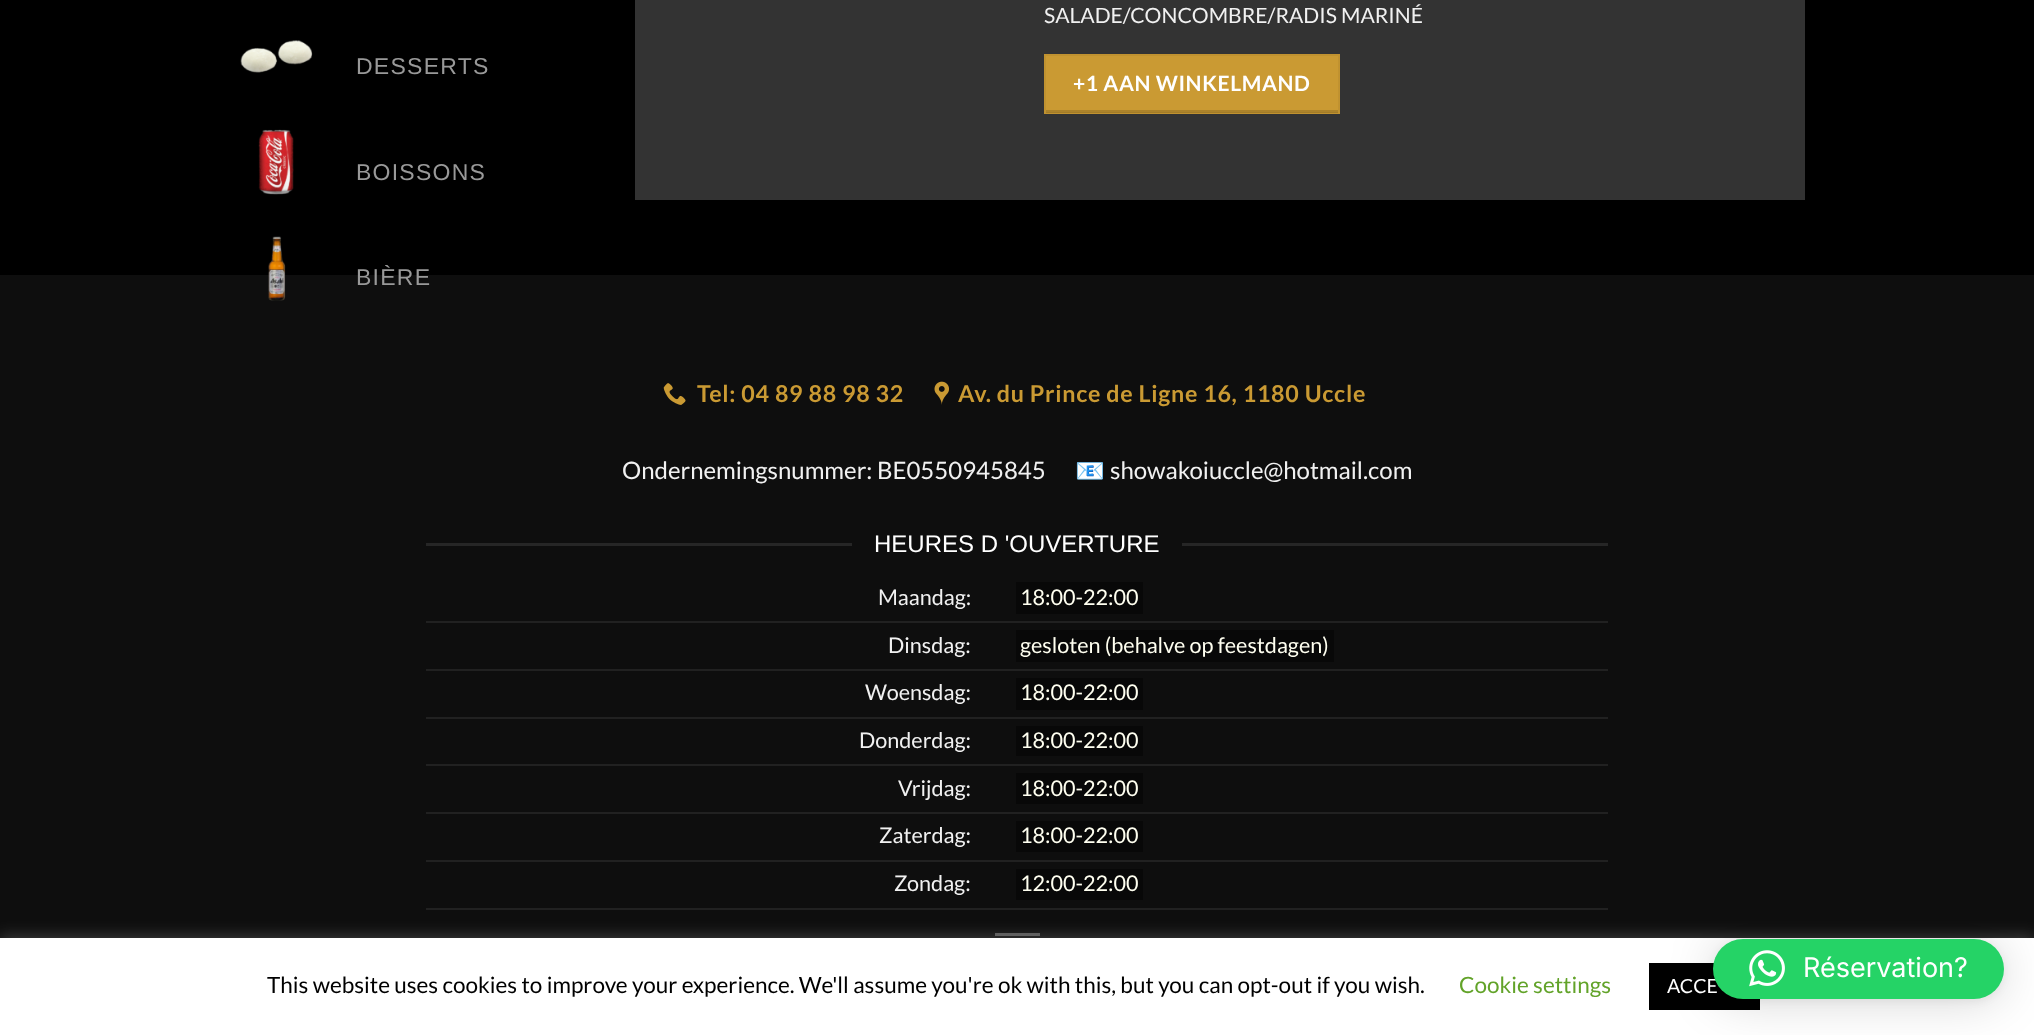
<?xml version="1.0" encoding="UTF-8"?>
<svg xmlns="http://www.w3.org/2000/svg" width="2034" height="1035">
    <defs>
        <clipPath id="clip1"><rect x="1046" y="56" width="292" height="57"/></clipPath>
        <filter id="blur1" x="-50%" y="-200%" width="200%" height="500%"><feGaussianBlur stdDeviation="7.5"/></filter>
        <filter id="blur2" x="-50%" y="-200%" width="200%" height="500%"><feGaussianBlur stdDeviation="24"/></filter>
        <filter id="blur3" x="-50%" y="-200%" width="200%" height="500%"><feGaussianBlur stdDeviation="4.5"/></filter>
    </defs>
    <rect width="100%" height="100%" fill="#000000"/>
    <rect x="635" y="0" width="1170" height="200" fill="#333333"/>
    <text x="1044" y="23" font-family="Lato" font-size="21.1" fill="#F1F1F1">SALADE/CONCOMBRE/RADIS MARINÉ</text>
    <rect x="1045" y="55" width="294" height="58" fill="#CA9A33" stroke="#C09230" stroke-width="2"/>
    <text x="1073" y="91" font-family="Lato" font-size="21.1" font-weight="700" letter-spacing="0.6" fill="#FFFFFF">+1 AAN WINKELMAND</text>
    <g clip-path="url(#clip1)">
        <path d="M 897 -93 H 1486 V 261 H 897 Z M 1045 53 H 1338 V 110 H 1045 Z" fill="#000000" fill-opacity="0.15" fill-rule="evenodd"/>
    </g>
    <image x="240" y="40" width="73" height="33" href="img_01.png"/>
    <text x="356" y="74" font-family="Arimo" font-size="23" letter-spacing="1.25" fill="#999999">DESSERTS</text>
    <image x="258" y="129" width="36" height="66" href="img_02.png"/>
    <text x="356" y="180" font-family="Arimo" font-size="23" letter-spacing="1.25" fill="#999999">BOISSONS</text>
    <rect x="0" y="275" width="2034" height="663" fill="#0E0E0E"/>
    <image x="268" y="236" width="18" height="65" href="img_03.png"/>
    <text x="356" y="285" font-family="Arimo" font-size="23" letter-spacing="1.25" fill="#999999">BIÈRE</text>
    <image x="663" y="383" width="23" height="22" href="img_04.png"/>
    <text x="697" y="402" font-family="Lato" font-size="23.25" font-weight="700" letter-spacing="0.7" fill="#CA9A33">Tel: 04 89 88 98 32</text>
    <image x="934" y="381" width="15" height="24" href="img_05.png"/>
    <text x="958" y="402" font-family="Lato" font-size="23.25" font-weight="700" letter-spacing="0.7" fill="#CA9A33">Av. du Prince de Ligne 16, 1180 Uccle</text>
    <text x="622" y="479" font-family="Lato" font-size="24" fill="#F1F1F1">Ondernemingsnummer: BE0550945845</text>
    <text x="1075" y="479" font-family="Noto Color Emoji" font-size="24" fill="#F1F1F1">📧</text>
    <text x="1110" y="479" font-family="Lato" font-size="24" fill="#F1F1F1">showakoiuccle@hotmail.com</text>
    <rect x="426" y="543" width="426" height="3" fill="#262626"/>
    <text x="874" y="552" font-family="Arimo" font-size="24" fill="#FFFFFF">HEURES D 'OUVERTURE</text>
    <rect x="1182" y="543" width="426" height="3" fill="#262626"/>
    <rect x="426" y="621" width="1182" height="2" fill="#212121"/>
    <text x="878" y="605" font-family="Lato" font-size="21.6" fill="#F1F1F1">Maandag:</text>
    <rect x="1016" y="582" width="127" height="32" fill="#080808"/>
    <text x="1020" y="605" font-family="Lato" font-size="21.6" fill="#FFFFF0">18:00-22:00</text>
    <rect x="426" y="669" width="1182" height="2" fill="#212121"/>
    <text x="888" y="653" font-family="Lato" font-size="21.6" fill="#F1F1F1">Dinsdag:</text>
    <rect x="1016" y="630" width="318" height="32" fill="#080808"/>
    <text x="1020" y="653" font-family="Lato" font-size="21.6" fill="#FFFFF0">gesloten (behalve op feestdagen)</text>
    <rect x="426" y="717" width="1182" height="2" fill="#212121"/>
    <text x="865" y="700" font-family="Lato" font-size="21.6" fill="#F1F1F1">Woensdag:</text>
    <rect x="1016" y="678" width="127" height="32" fill="#080808"/>
    <text x="1020" y="700" font-family="Lato" font-size="21.6" fill="#FFFFF0">18:00-22:00</text>
    <rect x="426" y="764" width="1182" height="2" fill="#212121"/>
    <text x="859" y="748" font-family="Lato" font-size="21.6" fill="#F1F1F1">Donderdag:</text>
    <rect x="1016" y="726" width="127" height="30" fill="#080808"/>
    <text x="1020" y="748" font-family="Lato" font-size="21.6" fill="#FFFFF0">18:00-22:00</text>
    <rect x="426" y="812" width="1182" height="2" fill="#212121"/>
    <text x="898" y="796" font-family="Lato" font-size="21.6" fill="#F1F1F1">Vrijdag:</text>
    <rect x="1016" y="773" width="127" height="31" fill="#080808"/>
    <text x="1020" y="796" font-family="Lato" font-size="21.6" fill="#FFFFF0">18:00-22:00</text>
    <rect x="426" y="860" width="1182" height="2" fill="#212121"/>
    <text x="879" y="843" font-family="Lato" font-size="21.6" fill="#F1F1F1">Zaterdag:</text>
    <rect x="1016" y="821" width="127" height="31" fill="#080808"/>
    <text x="1020" y="843" font-family="Lato" font-size="21.6" fill="#FFFFF0">18:00-22:00</text>
    <rect x="426" y="908" width="1182" height="2" fill="#212121"/>
    <text x="894" y="891" font-family="Lato" font-size="21.6" fill="#F1F1F1">Zondag:</text>
    <rect x="1016" y="869" width="127" height="31" fill="#080808"/>
    <text x="1020" y="891" font-family="Lato" font-size="21.6" fill="#FFFFF0">12:00-22:00</text>
    <rect x="995" y="933" width="45" height="3" fill="#565656"/>
    <rect x="0" y="936" width="2034" height="98" fill="#ACABAB" fill-opacity="0.3" filter="url(#blur1)"/>
    <rect x="0" y="938" width="2034" height="97" fill="#FFFFFF"/>
    <rect x="1649" y="963" width="111" height="47" fill="#000000"/>
    <rect x="1713" y="942" width="291" height="60" rx="30" fill="#000000" fill-opacity="0.16" filter="url(#blur2)"/>
    <rect x="1713" y="941" width="291" height="60" rx="30" fill="#000000" fill-opacity="0.06" filter="url(#blur3)"/>
    <text x="1667" y="993" font-family="Lato" font-size="19.5" fill="#FFFFFF">ACCE</text>
    <rect x="1713" y="939" width="291" height="60" rx="30" fill="#25D366"/>
    <image x="1749" y="950" width="36" height="37" href="img_06.png"/>
    <text x="1803" y="977" font-family="Inter" font-size="27" fill="#FFFFFF">Réservation?</text>
    <text x="267" y="993" font-family="Lato" font-size="22.5" fill="#000000">This website uses cookies to improve your experience. We'll assume you're ok with this, but you can opt-out if you wish.</text>
    <text x="1459" y="993" font-family="Lato" font-size="22.5" fill="#62A329">Cookie settings</text>
</svg>
